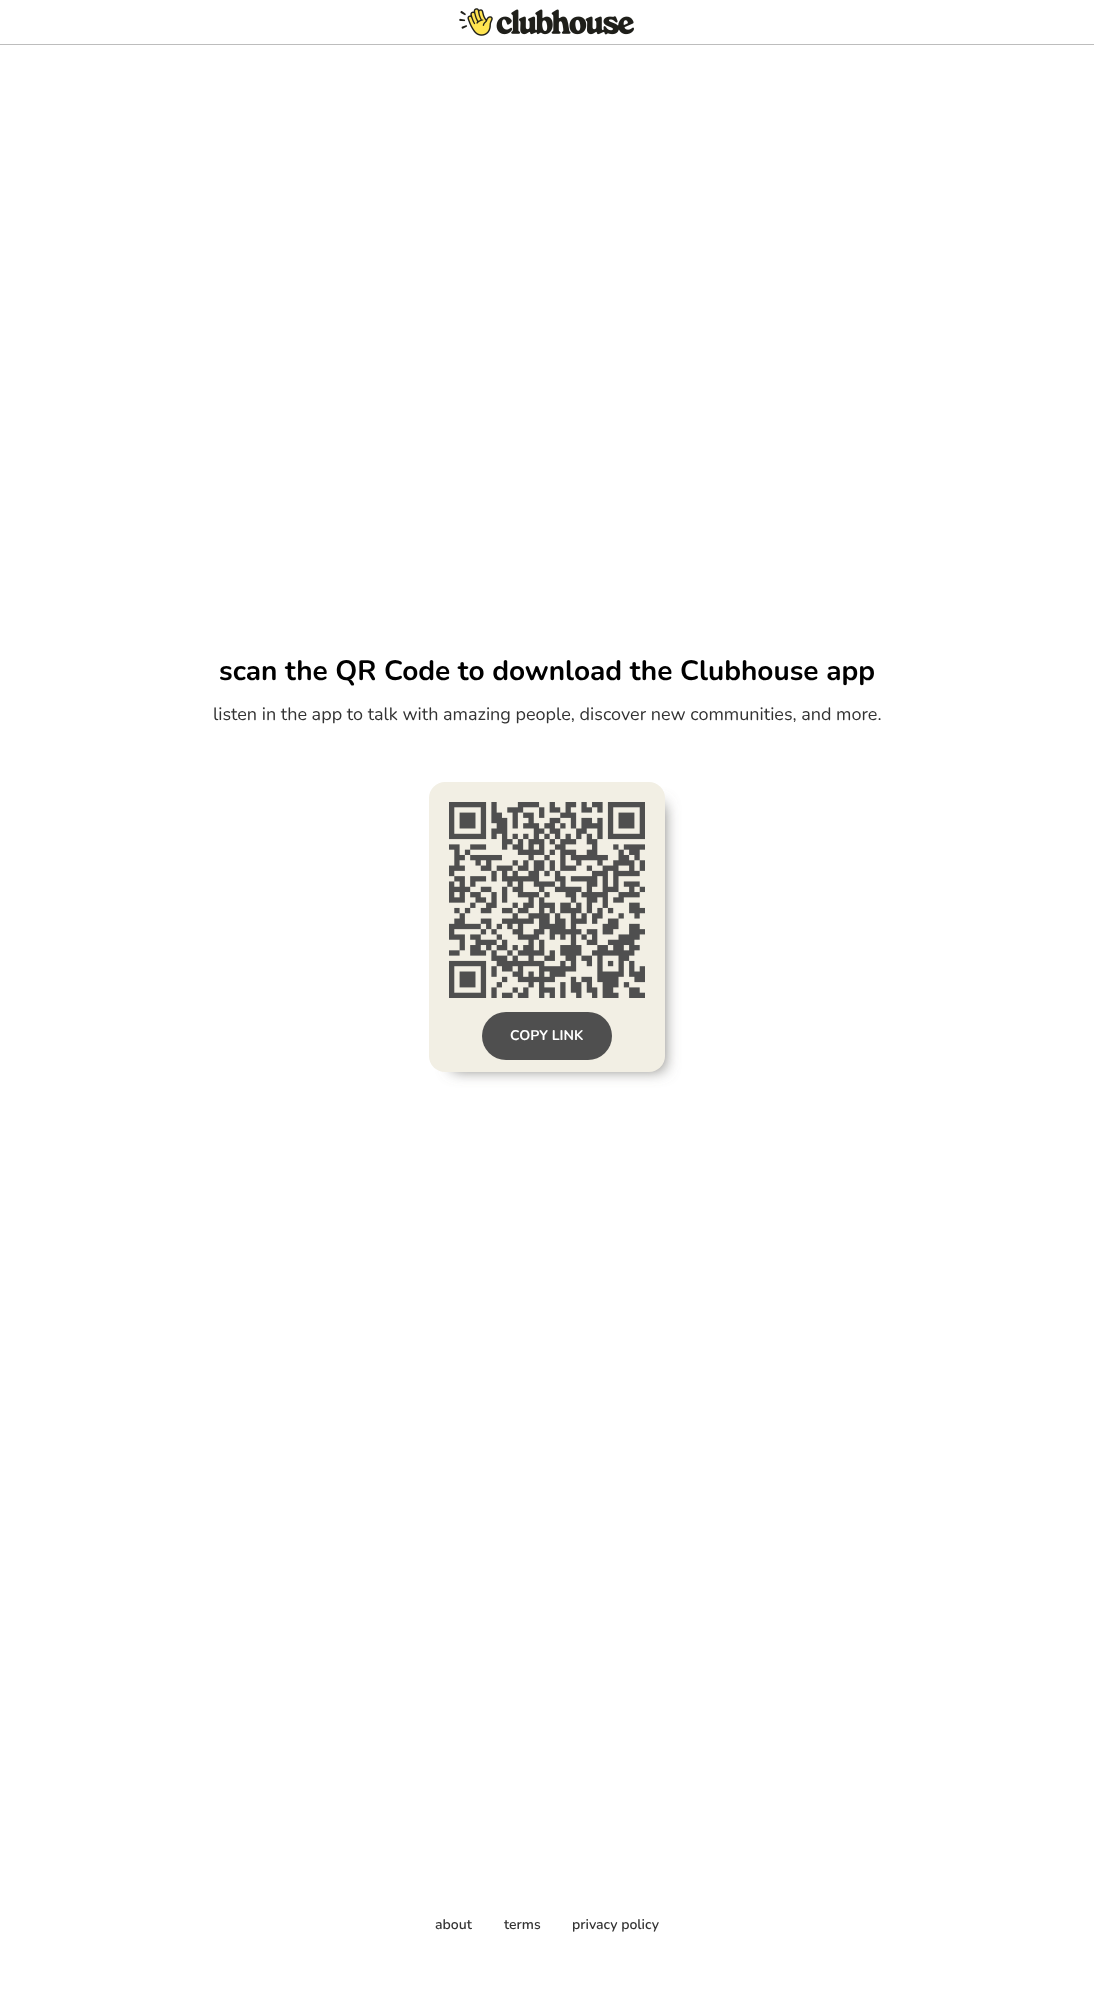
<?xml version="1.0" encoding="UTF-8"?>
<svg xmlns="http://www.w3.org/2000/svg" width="1094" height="1998">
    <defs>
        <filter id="blur1" x="-50%" y="-200%" width="200%" height="500%"><feGaussianBlur stdDeviation="7.5"/></filter>
    </defs>
    <rect width="100%" height="100%" fill="#FFFFFF"/>
    <rect x="0" y="44" width="1094" height="1" fill="#BDBDBD"/>
    <image x="459" y="8" width="175" height="28" href="img_01.png"/>
    <text x="219" y="680" font-family="Nunito" font-size="28" font-weight="700" fill="#000000">scan the QR Code to download the Clubhouse app</text>
    <text x="213" y="720" font-family="Nunito" font-size="18" fill="#333333">listen in the app to talk with amazing people, discover new communities, and more.</text>
    <rect x="452" y="804" width="212" height="266" rx="4" fill="#777671" filter="url(#blur1)"/>
    <rect x="429" y="782" width="236" height="290" rx="16" fill="#F2EFE4"/>
    <image x="449" y="802" width="196" height="196" href="img_02.png"/>
    <rect x="482" y="1012" width="130" height="48" rx="24" fill="#4F4F4F"/>
    <text x="510" y="1040" font-family="Nunito" font-size="14" font-weight="700" fill="#FFFFFF">COPY LINK</text>
    <text x="435" y="1929" font-family="Nunito" font-size="14" font-weight="600" fill="#333333">about</text>
    <text x="504" y="1929" font-family="Nunito" font-size="14" font-weight="600" fill="#333333">terms</text>
    <text x="572" y="1929" font-family="Nunito" font-size="14" font-weight="600" fill="#333333">privacy policy</text>
</svg>
